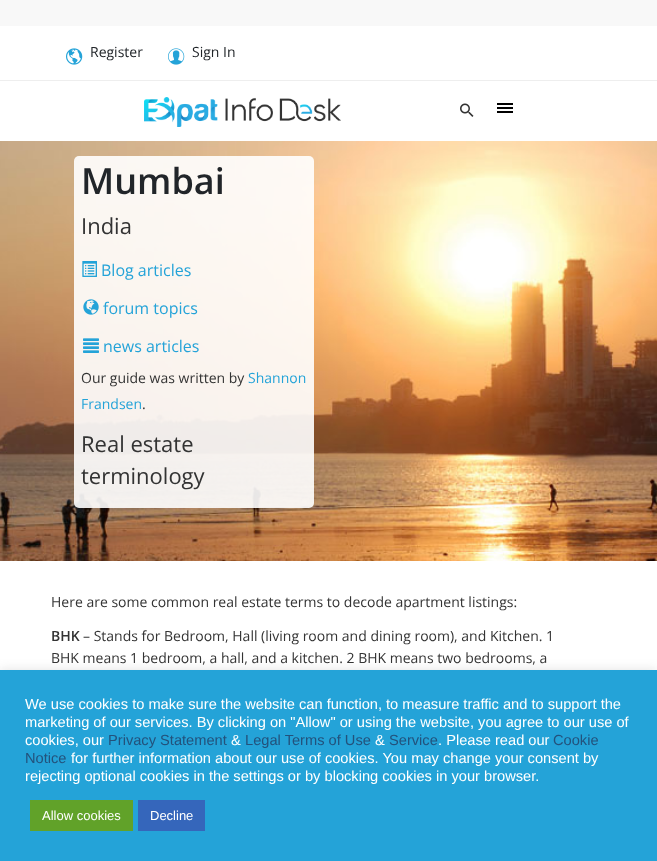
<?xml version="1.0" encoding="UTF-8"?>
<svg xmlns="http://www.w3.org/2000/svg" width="657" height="861">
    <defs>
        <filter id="blur1" x="-50%" y="-200%" width="200%" height="500%"><feGaussianBlur stdDeviation="5"/></filter>
    </defs>
    <rect width="100%" height="100%" fill="#F8F8F8"/>
    <rect x="0" y="26" width="657" height="644" fill="#FFFFFF"/>
    <rect x="0" y="80" width="657" height="1" fill="#EEEEEE"/>
    <image x="66" y="48" width="17" height="17" href="img_01.png"/>
    <text x="90" y="57" font-family="Open Sans" font-size="14" fill="#212529">Register</text>
    <image x="168" y="48" width="17" height="17" href="img_02.png"/>
    <text x="192" y="57" font-family="Open Sans" font-size="14" fill="#212529">Sign In</text>
    <image x="144" y="97" width="197" height="30" href="img_03.png"/>
    <image x="460" y="103" width="14" height="14" href="img_04.png"/>
    <rect x="497" y="103" width="16" height="2" fill="#000000"/>
    <rect x="497" y="107" width="16" height="2" fill="#000000"/>
    <rect x="497" y="111" width="16" height="2" fill="#000000"/>
    <image x="0" y="141" width="657" height="420" href="img_05.png"/>
    <rect x="74" y="156" width="240" height="352" rx="5" fill="#FFFFFF" fill-opacity="0.9"/>
    <text x="81" y="194" font-family="Open Sans" font-size="36" font-weight="600" fill="#212529">Mumbai</text>
    <text x="81" y="234" font-family="Open Sans" font-size="22" fill="#333333">India</text>
    <image x="82" y="261" width="15" height="16" href="img_06.png"/>
    <text x="101" y="276" font-family="Open Sans" font-size="16" fill="#24A3D8">Blog articles</text>
    <image x="83" y="299" width="16" height="16" href="img_07.png"/>
    <text x="103" y="314" font-family="Open Sans" font-size="16" fill="#24A3D8">forum topics</text>
    <image x="83" y="338" width="16" height="15" href="img_08.png"/>
    <text x="103" y="352" font-family="Open Sans" font-size="16" fill="#24A3D8">news articles</text>
    <text x="81" y="383" font-family="Open Sans" font-size="14" fill="#333333">Our guide was written by</text>
    <text x="248" y="383" font-family="Open Sans" font-size="14" fill="#24A3D8">Shannon</text>
    <text x="81" y="409" font-family="Open Sans" font-size="14" fill="#24A3D8">Frandsen</text>
    <text x="142" y="409" font-family="Open Sans" font-size="14" fill="#333333">.</text>
    <text font-family="Open Sans" font-size="22" fill="#333333">
        <tspan x="81" y="452">Real estate</tspan>
        <tspan x="81" y="484">terminology</tspan>
    </text>
    <text x="51" y="607" font-family="Open Sans" font-size="14" fill="#333333">Here are some common real estate terms to decode apartment listings:</text>
    <text x="51" y="641" font-family="Open Sans" font-size="14" font-weight="600" fill="#333333">BHK</text>
    <text x="83" y="641" font-family="Open Sans" font-size="14" fill="#333333">– Stands for Bedroom, Hall (living room and dining room), and Kitchen. 1</text>
    <text x="51" y="663" font-family="Open Sans" font-size="14" fill="#333333">BHK means 1 bedroom, a hall, and a kitchen. 2 BHK means two bedrooms, a</text>
    <rect x="0" y="669" width="657" height="191" fill="#ACABAB" fill-opacity="0.3" filter="url(#blur1)"/>
    <rect x="0" y="670" width="657" height="191" fill="#24A3D8"/>
    <text font-family="Liberation Sans" font-size="14.65" fill="#FFFFFF">
        <tspan x="25" y="709">We use cookies to make sure the website can function, to measure traffic and to support the</tspan>
        <tspan x="25" y="727">marketing of our services. By clicking on "Allow" or using the website, you agree to our use of</tspan>
        <tspan x="25" y="745">cookies, our</tspan>
    </text>
    <text x="108" y="745" font-family="Liberation Sans" font-size="14.65" fill="#23527C">Privacy Statement</text>
    <text x="231" y="745" font-family="Liberation Sans" font-size="14.65" fill="#FFFFFF">&amp;</text>
    <text x="245" y="745" font-family="Liberation Sans" font-size="14.65" fill="#23527C">Legal Terms of Use</text>
    <text x="375" y="745" font-family="Liberation Sans" font-size="14.65" fill="#FFFFFF">&amp;</text>
    <text x="389" y="745" font-family="Liberation Sans" font-size="14.65" fill="#23527C">Service</text>
    <text x="438" y="745" font-family="Liberation Sans" font-size="14.65" fill="#FFFFFF">. Please read our</text>
    <text x="553" y="745" font-family="Liberation Sans" font-size="14.65" fill="#23527C">Cookie</text>
    <text x="25" y="763" font-family="Liberation Sans" font-size="14.65" fill="#23527C">Notice</text>
    <text x="71" y="763" font-family="Liberation Sans" font-size="14.65" fill="#FFFFFF">for further information about our use of cookies. You may change your consent by</text>
    <text x="25" y="781" font-family="Liberation Sans" font-size="14.65" fill="#FFFFFF">rejecting optional cookies in the settings or by blocking cookies in your browser.</text>
    <rect x="30" y="800" width="103" height="31" fill="#61A229"/>
    <text x="42" y="820" font-family="Liberation Sans" font-size="13" fill="#FFFFFF">Allow cookies</text>
    <rect x="138" y="800" width="67" height="31" fill="#3566BB"/>
    <text x="150" y="820" font-family="Liberation Sans" font-size="13" fill="#FFFFFF">Decline</text>
</svg>
